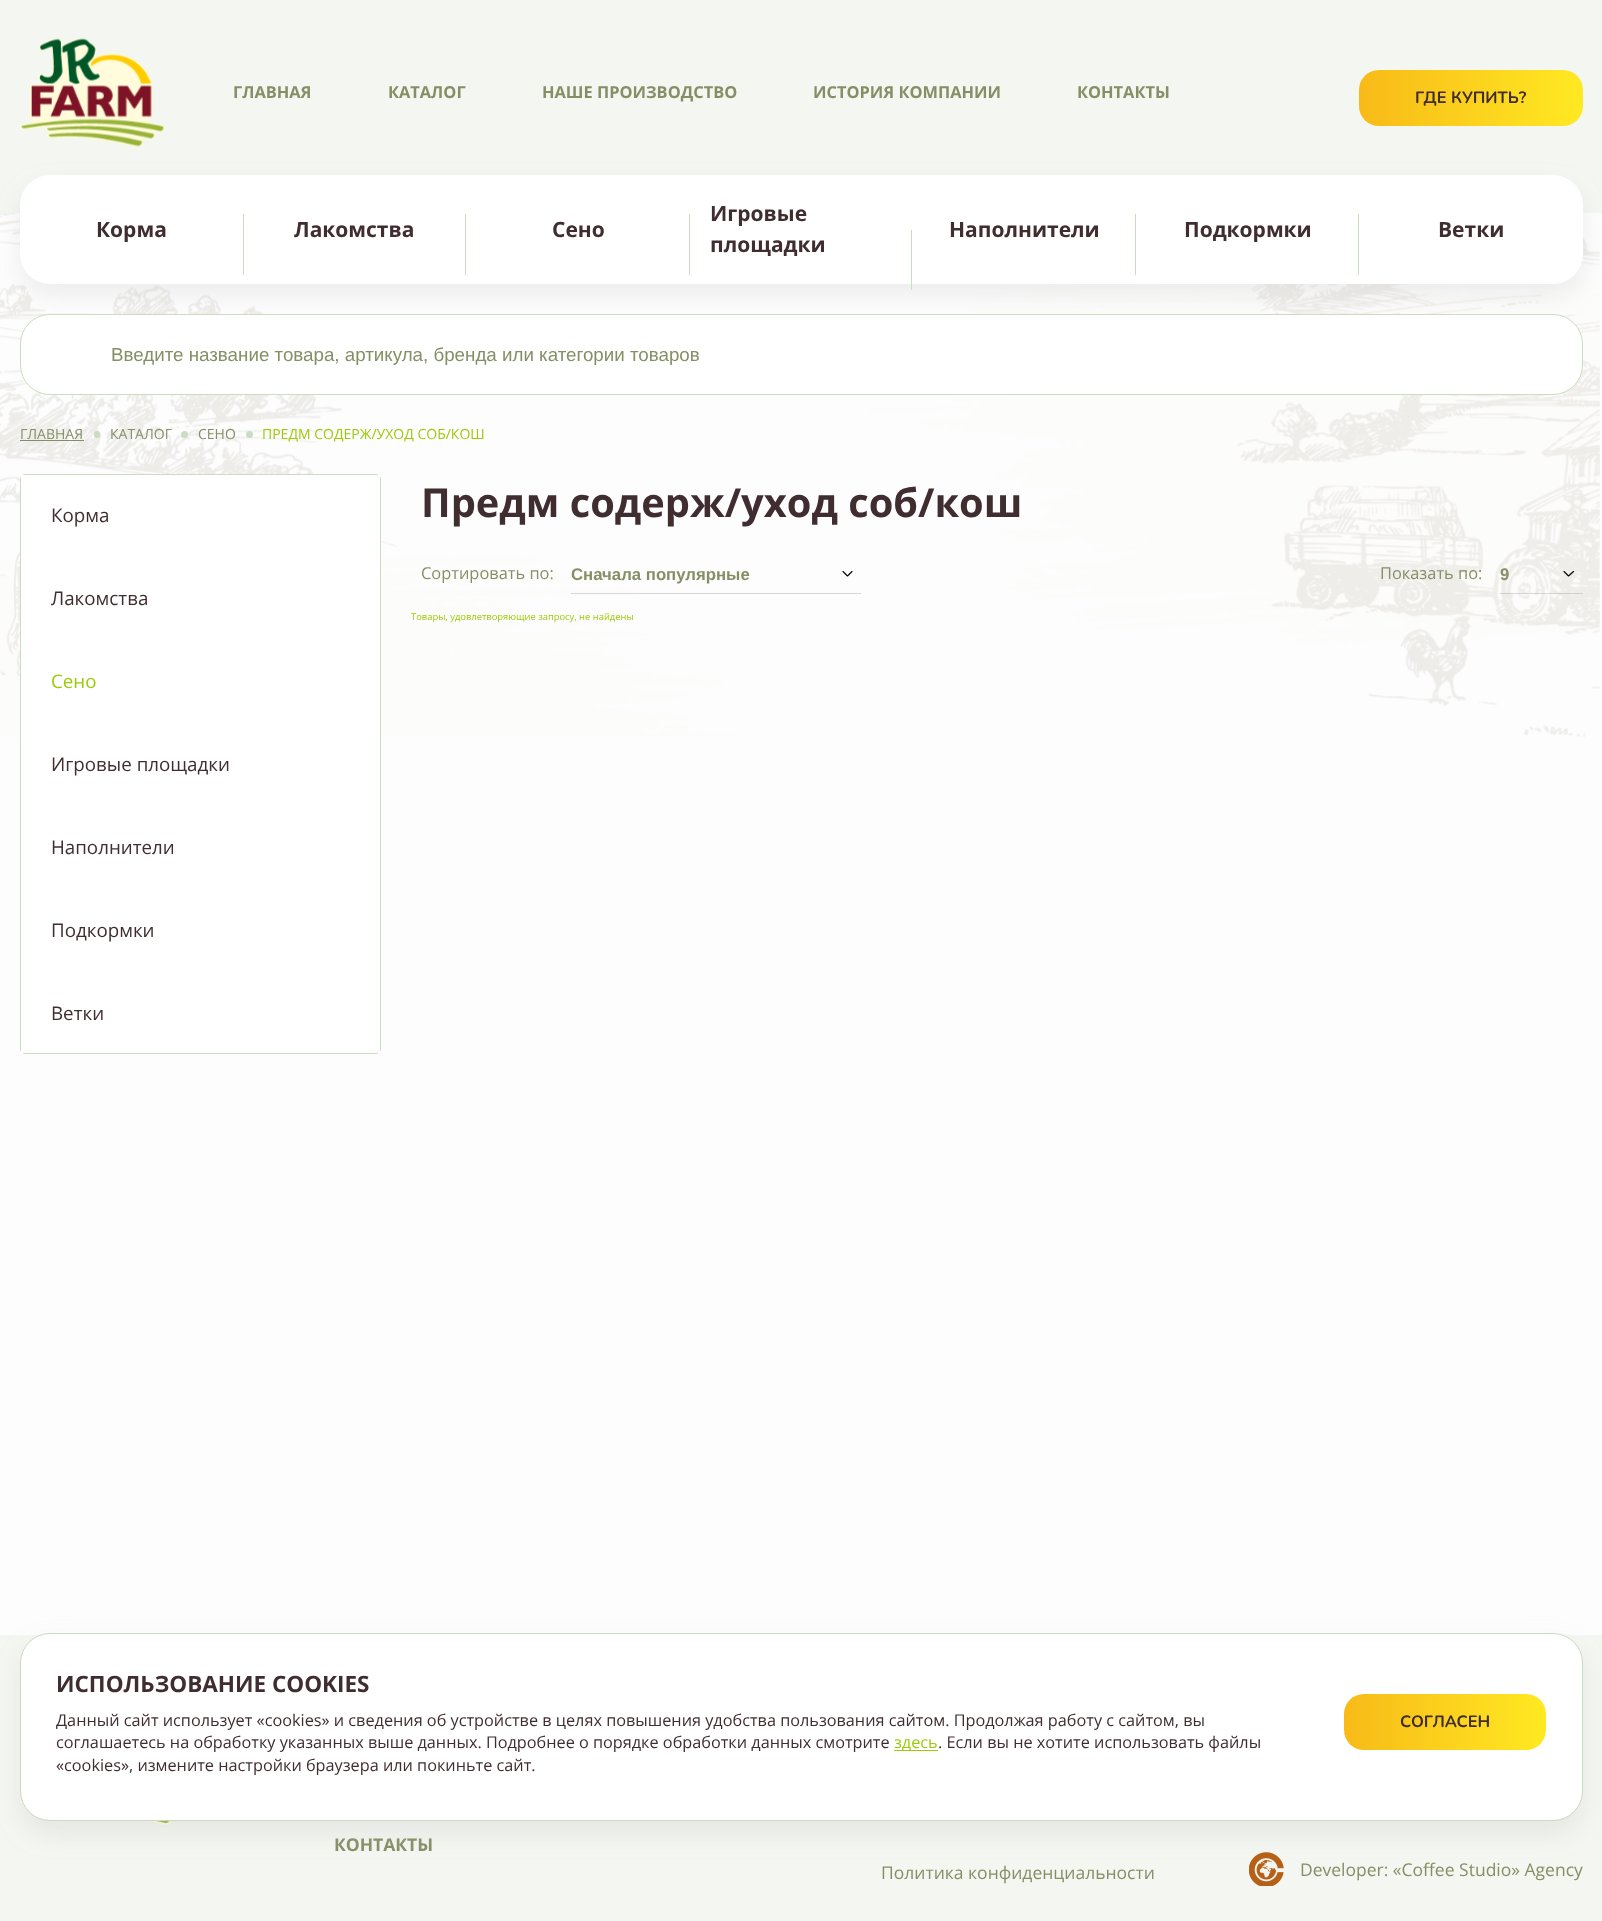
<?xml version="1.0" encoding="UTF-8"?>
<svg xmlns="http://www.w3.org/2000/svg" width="1602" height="1921">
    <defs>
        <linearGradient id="g1" gradientUnits="userSpaceOnUse" x1="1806" y1="98" x2="1359" y2="98"><stop offset="0.5" stop-color="#FFE922"/><stop offset="1" stop-color="#F8BA18"/></linearGradient>
        <filter id="blur1" x="-50%" y="-200%" width="200%" height="500%"><feGaussianBlur stdDeviation="12.5"/></filter>
        <linearGradient id="g2" gradientUnits="userSpaceOnUse" x1="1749" y1="1722" x2="1344" y2="1722"><stop offset="0.5" stop-color="#FFE922"/><stop offset="1" stop-color="#F8BA18"/></linearGradient>
    </defs>
    <rect width="100%" height="100%" fill="#F3F6F1"/>
    <rect x="0" y="213" width="1602" height="1422" fill="#FDFDFD"/>
    <image x="20" y="38" width="145" height="109" href="img_01.png"/>
    <text x="233" y="98" font-family="Open Sans" font-size="16.4" font-weight="700" fill="#858F65">ГЛАВНАЯ</text>
    <text x="388" y="98" font-family="Open Sans" font-size="16.4" font-weight="700" fill="#858F65">КАТАЛОГ</text>
    <text x="542" y="98" font-family="Open Sans" font-size="16.4" font-weight="700" fill="#858F65">НАШЕ ПРОИЗВОДСТВО</text>
    <text x="813" y="98" font-family="Open Sans" font-size="16.4" font-weight="700" fill="#858F65">ИСТОРИЯ КОМПАНИИ</text>
    <text x="1077" y="98" font-family="Open Sans" font-size="16.4" font-weight="700" fill="#858F65">КОНТАКТЫ</text>
    <rect x="1359" y="70" width="224" height="56" rx="20" fill="url(#g1)"/>
    <text x="1415" y="103" font-family="Nunito" font-size="16.4" font-weight="700" fill="#402D30">ГДЕ КУПИТЬ?</text>
    <image x="0" y="213" width="1600" height="524" href="img_02.png"/>
    <rect x="20" y="188" width="1563" height="108" rx="30" fill="#BDBDBD" fill-opacity="0.25" filter="url(#blur1)"/>
    <rect x="20" y="175" width="1563" height="109" rx="30" fill="#FFFFFF"/>
    <text x="96" y="237" font-family="Open Sans" font-size="21" font-weight="700" fill="#402D30">Корма</text>
    <rect x="243" y="214" width="1" height="61" fill="#CADCC2"/>
    <text x="294" y="237" font-family="Open Sans" font-size="21" font-weight="700" fill="#402D30">Лакомства</text>
    <rect x="465" y="214" width="1" height="61" fill="#CADCC2"/>
    <text x="552" y="237" font-family="Open Sans" font-size="21" font-weight="700" fill="#402D30">Сено</text>
    <rect x="689" y="214" width="1" height="61" fill="#CADCC2"/>
    <text font-family="Open Sans" font-size="21" font-weight="700" fill="#402D30">
        <tspan x="710" y="221">Игровые</tspan>
        <tspan x="710" y="252">площадки</tspan>
    </text>
    <rect x="911" y="230" width="1" height="60" fill="#CADCC2"/>
    <text x="949" y="237" font-family="Open Sans" font-size="21" font-weight="700" fill="#402D30">Наполнители</text>
    <rect x="1135" y="214" width="1" height="61" fill="#CADCC2"/>
    <text x="1184" y="237" font-family="Open Sans" font-size="21" font-weight="700" fill="#402D30">Подкормки</text>
    <rect x="1358" y="214" width="1" height="61" fill="#CADCC2"/>
    <text x="1438" y="237" font-family="Open Sans" font-size="21" font-weight="700" fill="#402D30">Ветки</text>
    <rect x="20.5" y="314.5" width="1562" height="80" rx="29.5" fill="#FFFFFF" stroke="#CADCC2"/>
    <text x="111" y="361" font-family="Liberation Sans" font-size="18.75" fill="#858F65">Введите название товара, артикула, бренда или категории товаров</text>
    <text x="20" y="439" font-family="Open Sans" font-size="14" fill="#858F65">ГЛАВНАЯ</text>
    <rect x="20" y="440" width="64" height="1" fill="#858F65"/>
    <rect x="94" y="431" width="6" height="7" rx="3" fill="#CADCC2"/>
    <text x="110" y="439" font-family="Open Sans" font-size="14" fill="#858F65">КАТАЛОГ</text>
    <circle cx="184.5" cy="434.5" r="3.5" fill="#CADCC2"/>
    <text x="198" y="439" font-family="Open Sans" font-size="14" fill="#858F65">СЕНО</text>
    <circle cx="249.5" cy="434.5" r="3.5" fill="#CADCC2"/>
    <text x="262" y="439" font-family="Open Sans" font-size="14" fill="#9DCA08">ПРЕДМ СОДЕРЖ/УХОД СОБ/КОШ</text>
    <rect x="20.5" y="474.5" width="360" height="579" rx="4.5" fill="none" stroke="#CADCC2"/>
    <rect x="21" y="475" width="359" height="578" fill="#FFFFFF"/>
    <text x="51" y="522" font-family="Open Sans" font-size="18.75" fill="#402D30">Корма</text>
    <text x="51" y="605" font-family="Open Sans" font-size="18.75" fill="#402D30">Лакомства</text>
    <text x="51" y="688" font-family="Open Sans" font-size="18.75" fill="#9DCA08">Сено</text>
    <text x="51" y="771" font-family="Open Sans" font-size="18.75" fill="#402D30">Игровые площадки</text>
    <text x="51" y="854" font-family="Open Sans" font-size="18.75" fill="#402D30">Наполнители</text>
    <text x="51" y="937" font-family="Open Sans" font-size="18.75" fill="#402D30">Подкормки</text>
    <text x="51" y="1020" font-family="Open Sans" font-size="18.75" fill="#402D30">Ветки</text>
    <text x="421" y="517" font-family="Open Sans" font-size="39.8" font-weight="700" fill="#402D30">Предм содерж/уход соб/кош</text>
    <text x="421" y="579" font-family="Open Sans" font-size="16.4" fill="#858F65">Сортировать по:</text>
    <rect x="571" y="593" width="290" height="1" fill="#D8D7D7"/>
    <text x="571" y="580" font-family="Liberation Sans" font-size="16.75" font-weight="700" fill="#858F65">Сначала популярные</text>
    <path d="M 843 571.5 L 847.5 576 L 852 571.5" fill="none" stroke="#000000" stroke-width="1.1" stroke-linecap="round" stroke-linejoin="round"/>
    <text x="1380" y="579" font-family="Open Sans" font-size="16.4" fill="#858F65">Показать по:</text>
    <rect x="1500" y="593" width="83" height="1" fill="#858585" fill-opacity="0.3"/>
    <text x="1500" y="580" font-family="Liberation Sans" font-size="16.75" font-weight="700" fill="#858F65">9</text>
    <path d="M 1564 571.5 L 1568.5 576 L 1573.5 571.5" fill="none" stroke="#000000" stroke-width="1.1" stroke-linecap="round" stroke-linejoin="round"/>
    <text x="411" y="620" font-family="Open Sans" font-size="9.4" fill="#9DCA08">Товары, удовлетворяющие запросу, не найдены</text>
    <image x="20" y="1796" width="153" height="29" href="img_03.png"/>
    <text x="334" y="1851" font-family="Open Sans" font-size="17.5" font-weight="700" fill="#858F65">КОНТАКТЫ</text>
    <text x="881" y="1879" font-family="Open Sans" font-size="17.5" fill="#858F65">Политика конфиденциальности</text>
    <image x="1249" y="1852" width="35" height="34" href="img_04.png"/>
    <text x="1300" y="1876" font-family="Open Sans" font-size="17.5" fill="#858F65">Developer: «Coffee Studio» Agency</text>
    <rect x="20" y="1645" width="1563" height="189" rx="30" fill="#BDBDBD" fill-opacity="0.25" filter="url(#blur1)"/>
    <rect x="20.5" y="1633.5" width="1562" height="187" rx="29.5" fill="#FFFFFF" stroke="#CADBC2"/>
    <text x="56" y="1692" font-family="Open Sans" font-size="22.5" font-weight="700" fill="#402D30">ИСПОЛЬЗОВАНИЕ COOKIES</text>
    <text font-family="Open Sans" font-size="16.25" fill="#402D30">
        <tspan x="56" y="1726">Данный сайт использует «cookies» и сведения об устройстве в целях повышения удобства пользования сайтом. Продолжая работу с сайтом, вы</tspan>
        <tspan x="56" y="1748">соглашаетесь на обработку указанных выше данных. Подробнее о порядке обработки данных смотрите</tspan>
    </text>
    <rect x="894" y="1750" width="44" height="1" fill="#9DCA08"/>
    <text x="894" y="1748" font-family="Open Sans" font-size="16.25" fill="#9DCA08">здесь</text>
    <text x="938" y="1748" font-family="Open Sans" font-size="16.25" fill="#402D30">. Если вы не хотите использовать файлы</text>
    <text x="56" y="1771" font-family="Open Sans" font-size="16.25" fill="#402D30">«cookies», измените настройки браузера или покиньте сайт.</text>
    <rect x="1344" y="1694" width="202" height="56" rx="20" fill="url(#g2)"/>
    <text x="1400" y="1727" font-family="Nunito" font-size="16.4" font-weight="700" fill="#402D30">СОГЛАСЕН</text>
</svg>
